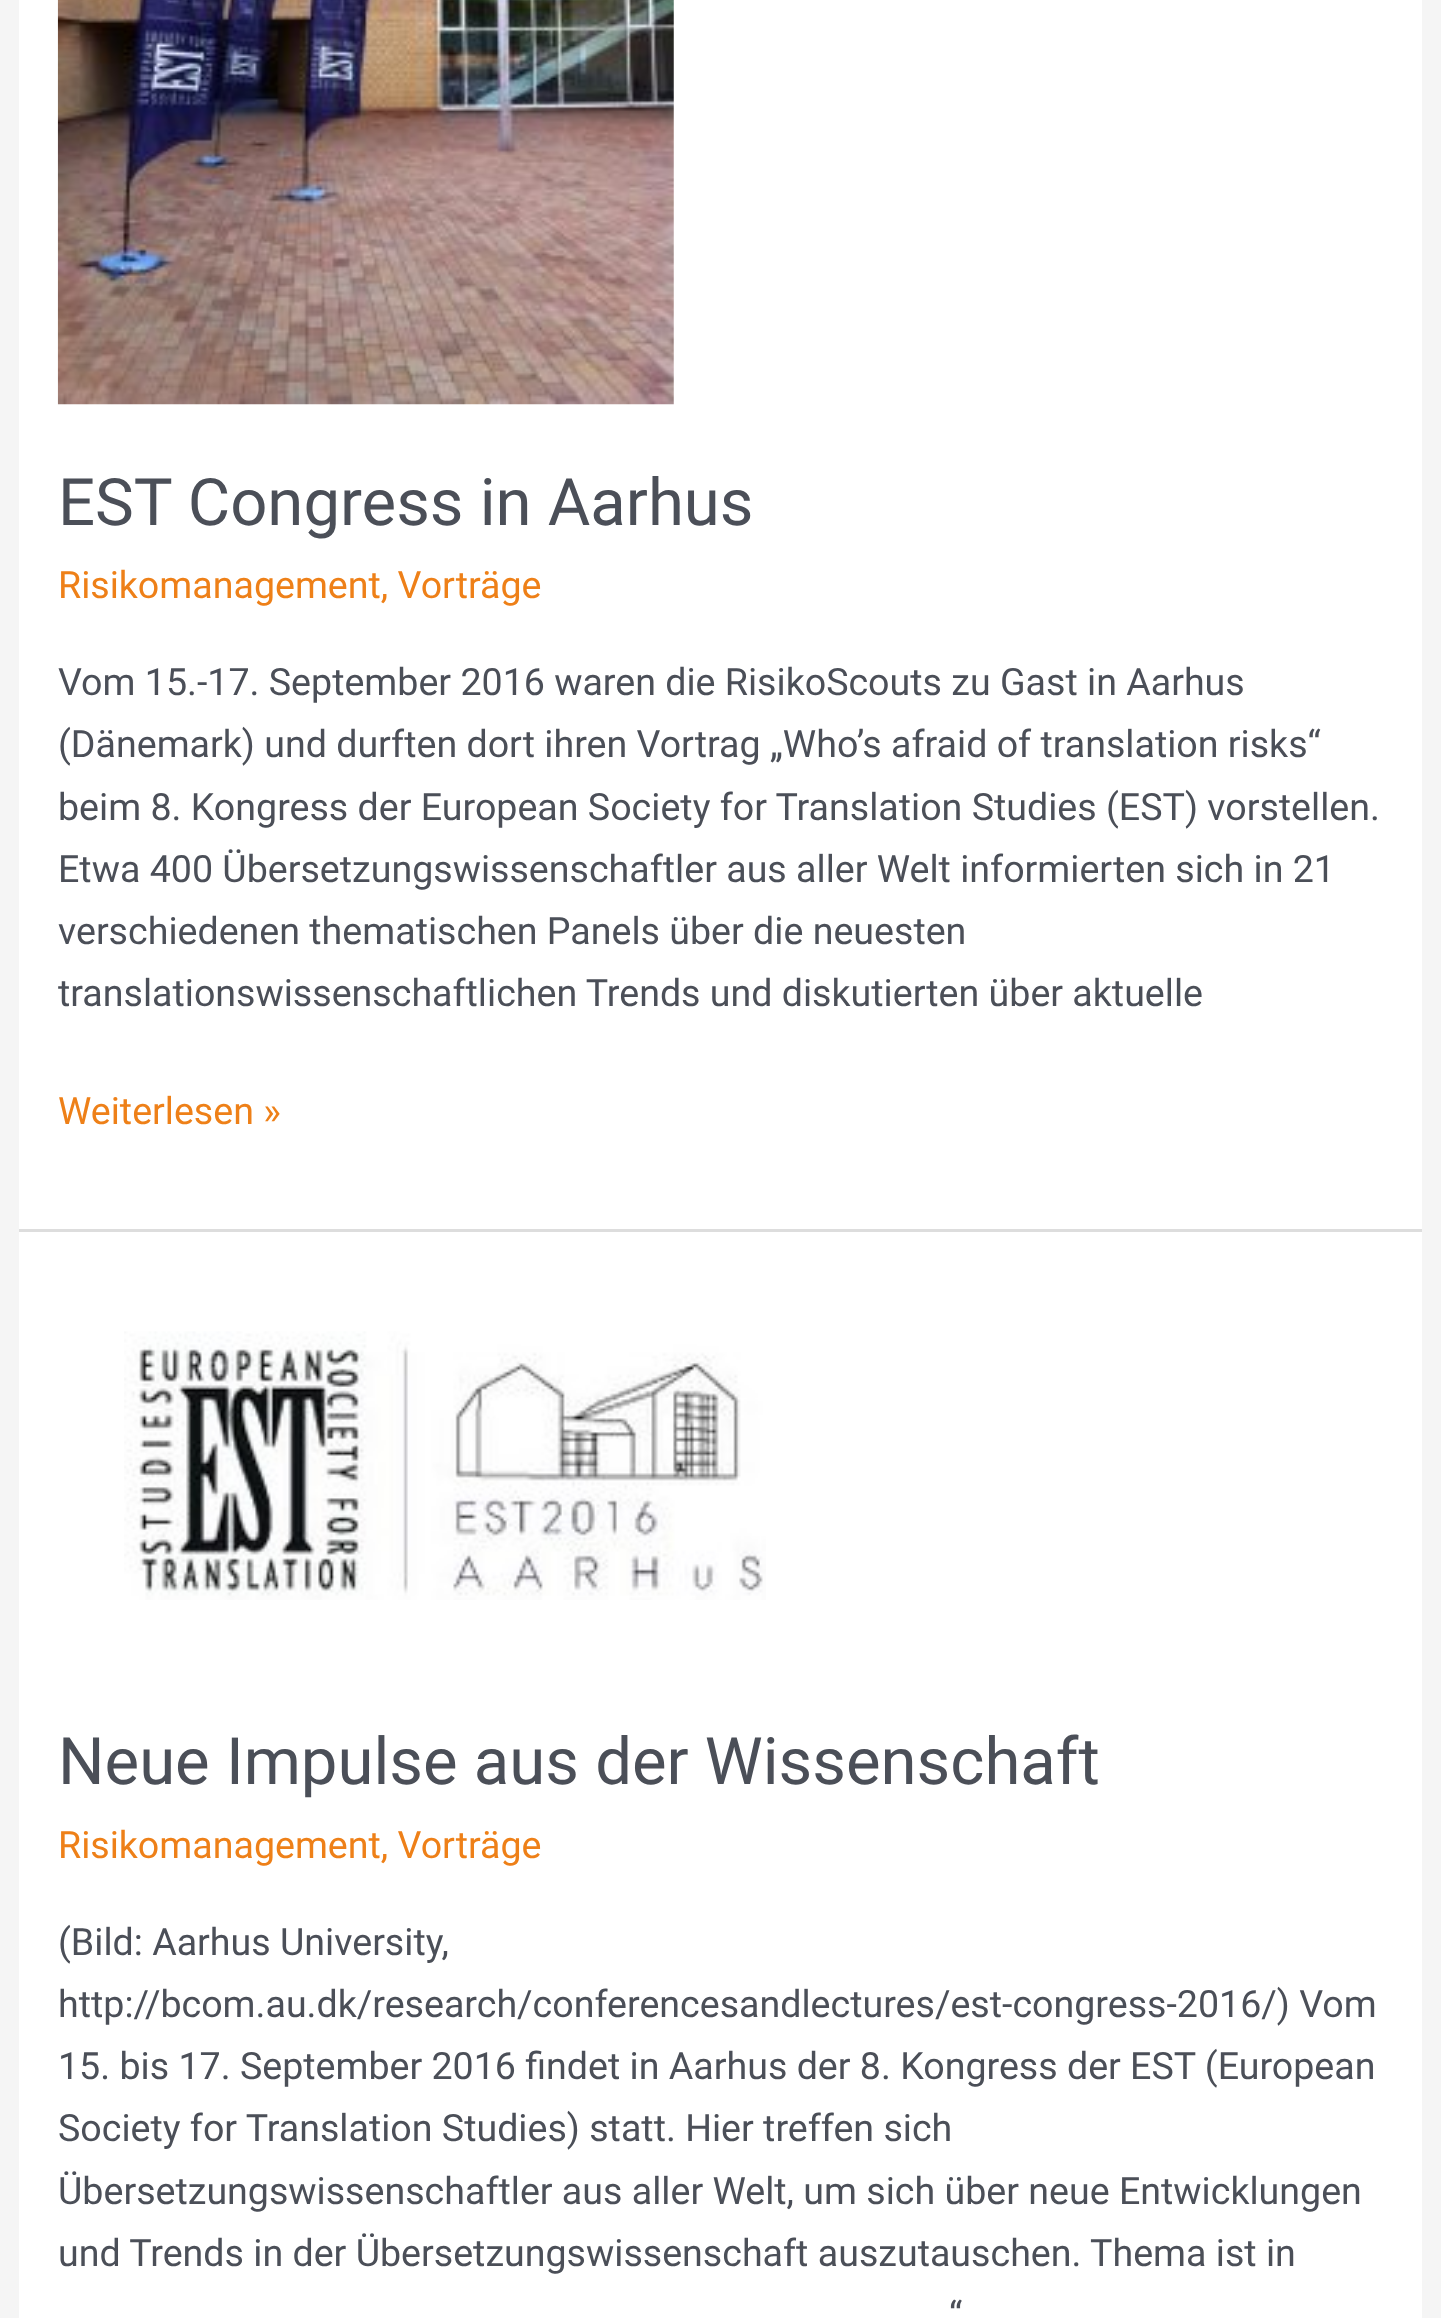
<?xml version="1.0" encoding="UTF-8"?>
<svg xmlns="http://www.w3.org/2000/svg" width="1441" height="2318">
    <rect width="100%" height="100%" fill="#F5F5F5"/>
    <rect x="19" y="0" width="1403" height="1229" fill="#FFFFFF"/>
    <rect x="19" y="1229" width="1403" height="3" fill="#DDDDDD"/>
    <image x="57" y="0" width="617" height="405" href="img_01.png"/>
    <text x="58" y="525" font-family="Roboto" font-size="65.25" fill="#4B4F58">EST Congress in Aarhus</text>
    <text x="58" y="598" font-family="Roboto" font-size="37.6" fill="#EE8018">Risikomanagement, Vorträge</text>
    <text font-family="Roboto" font-size="37.6" fill="#4B4F58">
        <tspan x="58" y="695">Vom 15.-17. September 2016 waren die RisikoScouts zu Gast in Aarhus</tspan>
        <tspan x="58" y="757">(Dänemark) und durften dort ihren Vortrag „Who’s afraid of translation risks“</tspan>
        <tspan x="58" y="820">beim 8. Kongress der European Society for Translation Studies (EST) vorstellen.</tspan>
        <tspan x="58" y="882">Etwa 400 Übersetzungswissenschaftler aus aller Welt informierten sich in 21</tspan>
        <tspan x="58" y="944">verschiedenen thematischen Panels über die neuesten</tspan>
        <tspan x="58" y="1006">translationswissenschaftlichen Trends und diskutierten über aktuelle</tspan>
    </text>
    <text x="58" y="1124" font-family="Roboto" font-size="37.6" fill="#EE8018">Weiterlesen »</text>
    <rect x="19" y="1232" width="1403" height="1086" fill="#FFFFFF"/>
    <image x="124" y="1331" width="642" height="269" href="img_02.png"/>
    <text x="58" y="1784" font-family="Roboto" font-size="65.25" fill="#4B4F58">Neue Impulse aus der Wissenschaft</text>
    <text x="58" y="1858" font-family="Roboto" font-size="37.6" fill="#EE8018">Risikomanagement, Vorträge</text>
    <text font-family="Roboto" font-size="37.6" fill="#4B4F58">
        <tspan x="58" y="1955">(Bild: Aarhus University,</tspan>
        <tspan x="58" y="2017">http://bcom.au.dk/research/conferencesandlectures/est-congress-2016/) Vom</tspan>
        <tspan x="58" y="2079">15. bis 17. September 2016 findet in Aarhus der 8. Kongress der EST (European</tspan>
        <tspan x="58" y="2141">Society for Translation Studies) statt. Hier treffen sich</tspan>
        <tspan x="58" y="2204">Übersetzungswissenschaftler aus aller Welt, um sich über neue Entwicklungen</tspan>
        <tspan x="58" y="2266">und Trends in der Übersetzungswissenschaft auszutauschen. Thema ist in</tspan>
    </text>
    <text x="949" y="2328" font-family="Roboto" font-size="37.6" fill="#4B4F58">“</text>
</svg>
